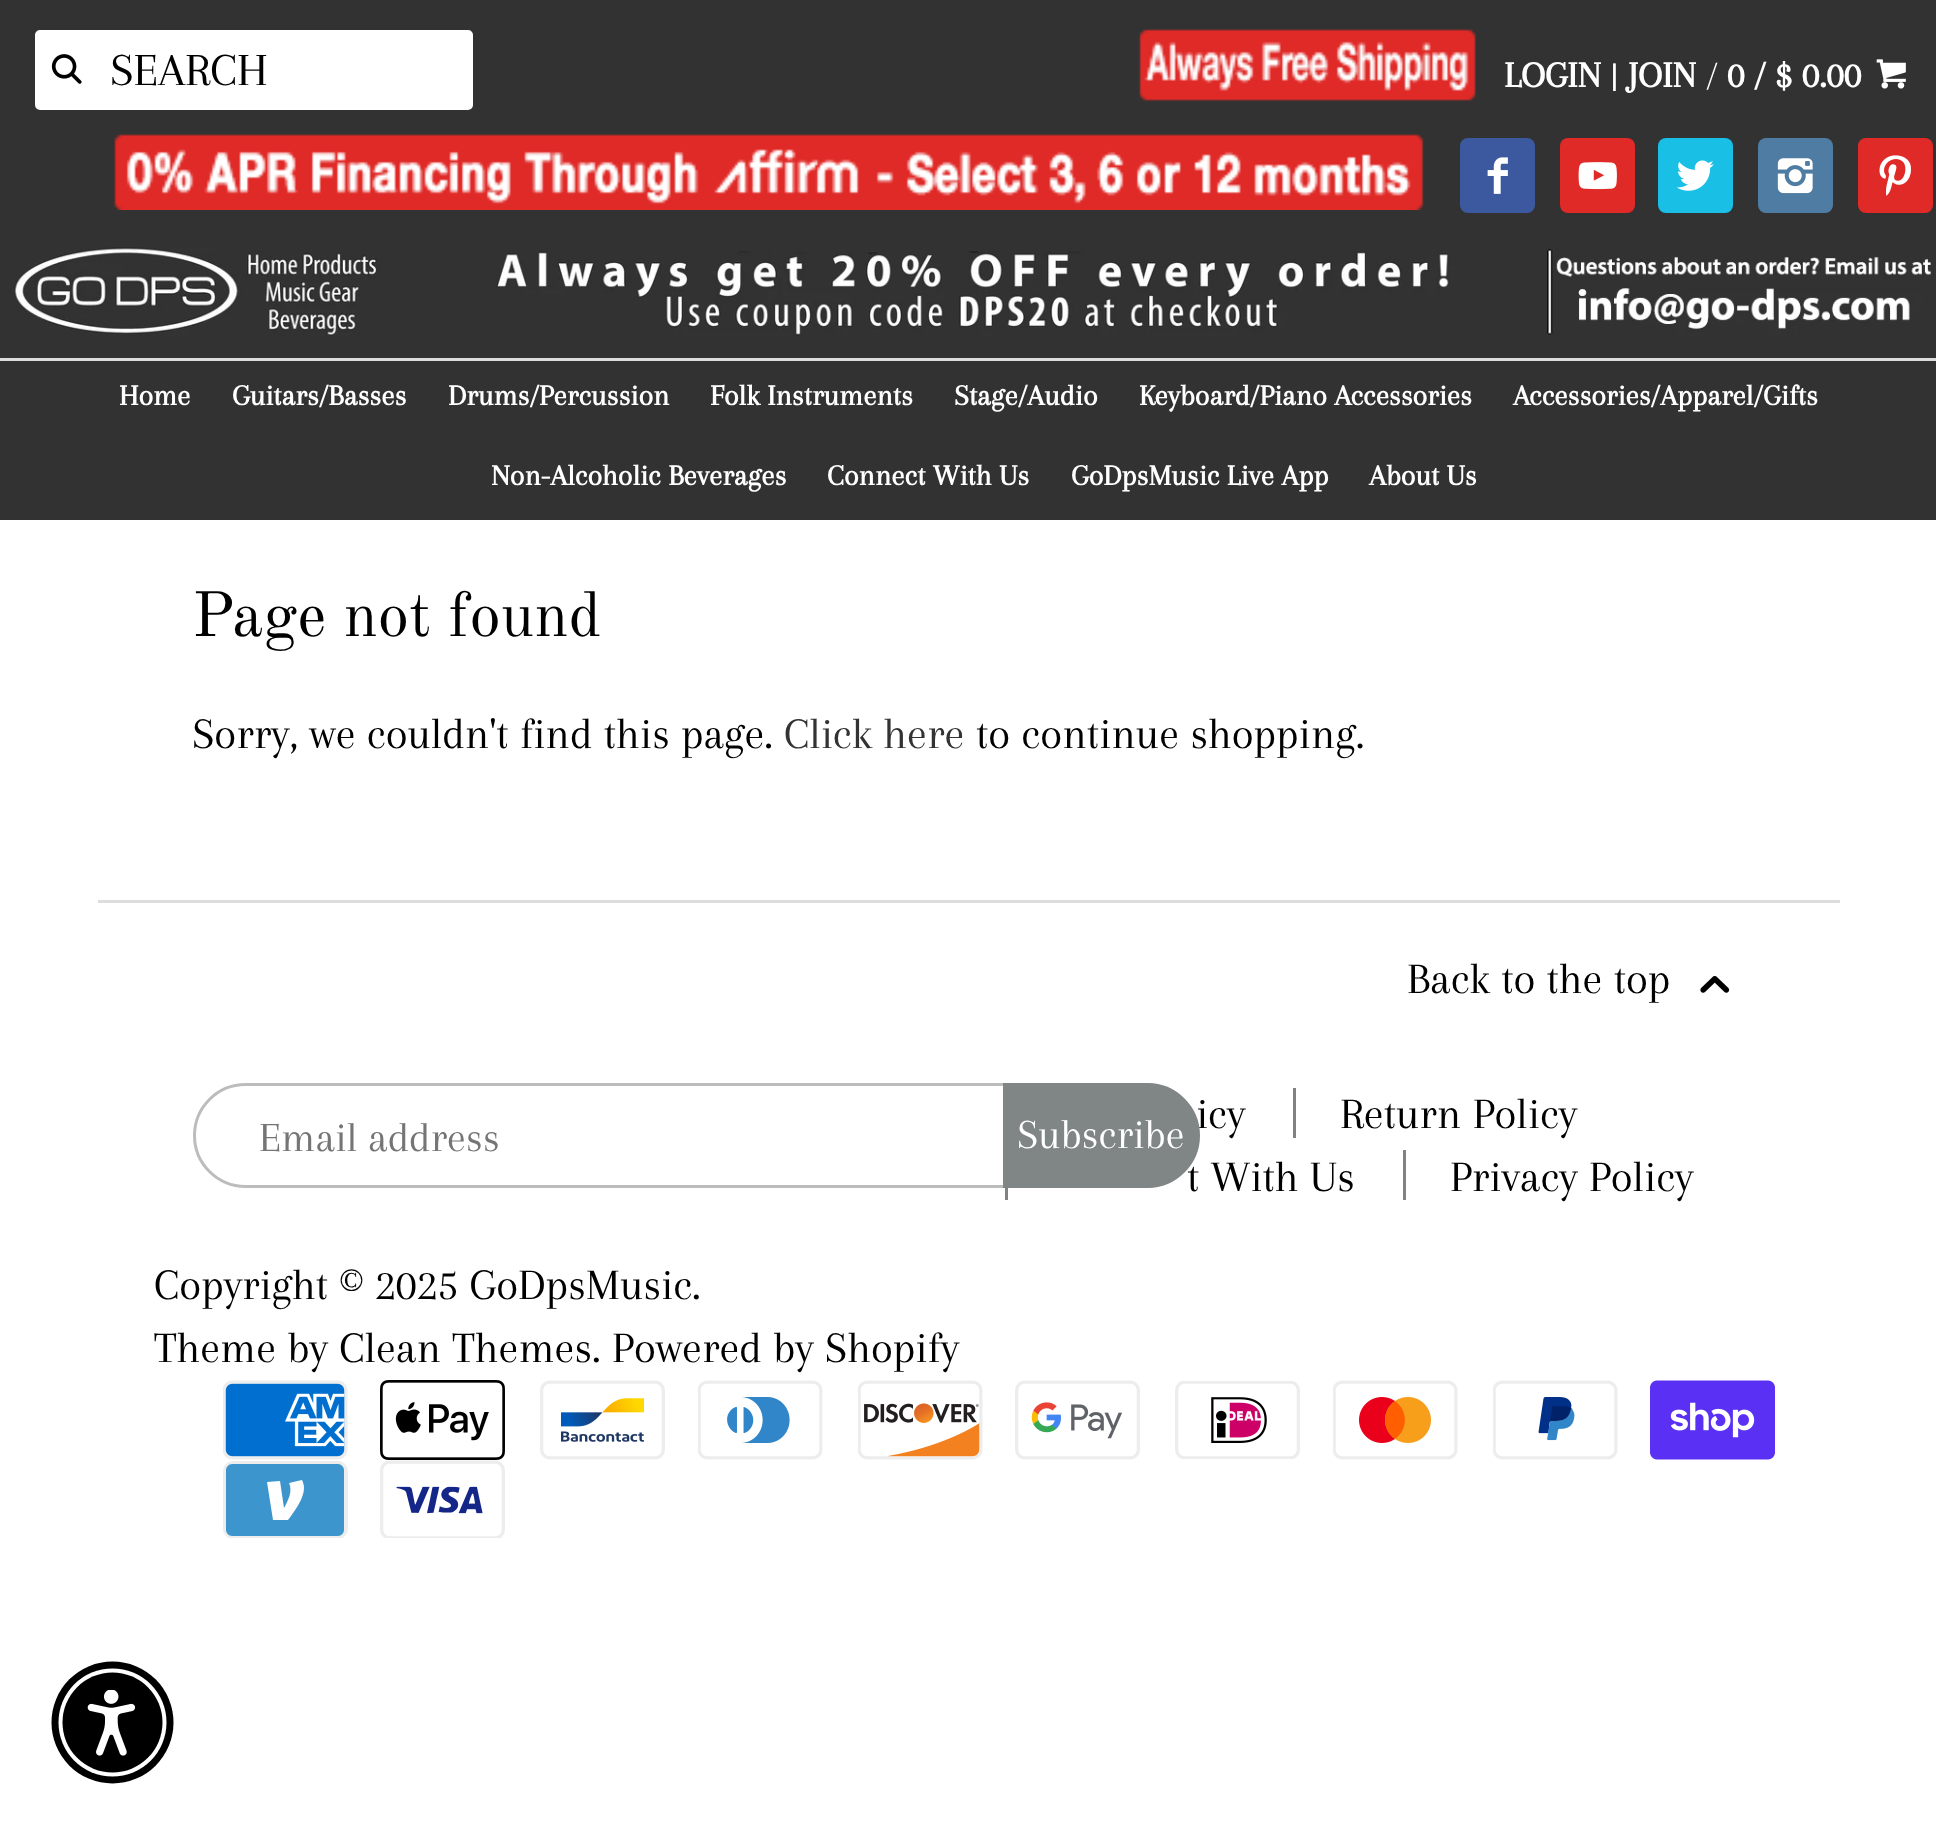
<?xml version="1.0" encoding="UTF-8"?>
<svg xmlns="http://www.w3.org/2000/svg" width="1936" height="1835">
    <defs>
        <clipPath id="clip1"><rect x="223" y="1460" width="125" height="78"/></clipPath>
    </defs>
    <rect width="100%" height="100%" fill="#FFFFFF"/>
    <rect x="0" y="0" width="1936" height="520" fill="#323232"/>
    <rect x="30" y="25" width="448" height="90" rx="10" fill="#FFFFFF" stroke="#323232" stroke-width="10"/>
    <image x="51" y="54" width="31" height="30" href="img_01.png"/>
    <text x="110" y="85" font-family="Arapey" font-size="47.5" fill="#000000">SEARCH</text>
    <image x="1139" y="29" width="337" height="72" href="img_02.png"/>
    <text x="1504" y="87" font-family="Arapey" font-size="37.5" font-weight="700" fill="#FFFFFF">LOGIN</text>
    <text x="1610" y="87" font-family="Arapey" font-size="37.5" fill="#FFFFFF">|</text>
    <text x="1628" y="87" font-family="Arapey" font-size="37.5" font-weight="700" fill="#FFFFFF">JOIN</text>
    <text x="1706" y="87" font-family="Arapey" font-size="37.5" fill="#FFFFFF">/</text>
    <text x="1727" y="87" font-family="Arapey" font-size="37.5" font-weight="700" fill="#FFFFFF">0 / $ 0.00</text>
    <image x="1876" y="59" width="30" height="30" href="img_03.png"/>
    <image x="114" y="134" width="1310" height="76" href="img_04.png"/>
    <rect x="1460" y="138" width="75" height="75" rx="8" fill="#3C599F"/>
    <image x="1487" y="157" width="21" height="37" href="img_05.png"/>
    <rect x="1560" y="138" width="75" height="75" rx="8" fill="#E02A27"/>
    <image x="1578" y="162" width="39" height="28" href="img_06.png"/>
    <rect x="1658" y="138" width="75" height="75" rx="8" fill="#19BFE5"/>
    <image x="1676" y="160" width="38" height="31" href="img_07.png"/>
    <rect x="1758" y="138" width="75" height="75" rx="8" fill="#4F7CA2"/>
    <image x="1777" y="158" width="36" height="36" href="img_08.png"/>
    <rect x="1858" y="138" width="75" height="75" rx="8" fill="#E02A27"/>
    <image x="1879" y="155" width="32" height="41" href="img_09.png"/>
    <image x="14" y="247" width="1917" height="89" href="img_10.png"/>
    <rect x="0" y="358" width="1936" height="3" fill="#DDDDDD"/>
    <text x="119" y="405" font-family="Arapey" font-size="30" font-weight="700" fill="#FFFFFF">Home</text>
    <text x="232" y="405" font-family="Arapey" font-size="30" font-weight="700" fill="#FFFFFF">Guitars/Basses</text>
    <text x="448" y="405" font-family="Arapey" font-size="30" font-weight="700" fill="#FFFFFF">Drums/Percussion</text>
    <text x="710" y="405" font-family="Arapey" font-size="30" font-weight="700" fill="#FFFFFF">Folk Instruments</text>
    <text x="954" y="405" font-family="Arapey" font-size="30" font-weight="700" fill="#FFFFFF">Stage/Audio</text>
    <text x="1139" y="405" font-family="Arapey" font-size="30" font-weight="700" fill="#FFFFFF">Keyboard/Piano Accessories</text>
    <text x="1513" y="405" font-family="Arapey" font-size="30" font-weight="700" fill="#FFFFFF">Accessories/Apparel/Gifts</text>
    <text x="491" y="485" font-family="Arapey" font-size="30" font-weight="700" fill="#FFFFFF">Non-Alcoholic Beverages</text>
    <text x="827" y="485" font-family="Arapey" font-size="30" font-weight="700" fill="#FFFFFF">Connect With Us</text>
    <text x="1071" y="485" font-family="Arapey" font-size="30" font-weight="700" fill="#FFFFFF">GoDpsMusic Live App</text>
    <text x="1369" y="485" font-family="Arapey" font-size="30" font-weight="700" fill="#FFFFFF">About Us</text>
    <text x="192" y="636" font-family="Old Standard TT" font-size="63" fill="#000000">Page not found</text>
    <text x="192" y="748" font-family="Arapey" font-size="45" fill="#000000">Sorry, we couldn't find this page.</text>
    <text x="784" y="748" font-family="Arapey" font-size="45" fill="#333333">Click here</text>
    <text x="976" y="748" font-family="Arapey" font-size="45" fill="#000000">to continue shopping.</text>
    <rect x="98" y="900" width="1742" height="3" fill="#DDDDDD"/>
    <text x="1407" y="993" font-family="Arapey" font-size="45" fill="#000000">Back to the top</text>
    <image x="1700" y="976" width="30" height="17" href="img_11.png"/>
    <text x="1196" y="1128" font-family="Arapey" font-size="45" fill="#000000">icy</text>
    <text x="1187" y="1191" font-family="Arapey" font-size="45" fill="#000000">t With Us</text>
    <rect x="194.5" y="1084.5" width="1002" height="102" rx="51" fill="#FFFFFF" stroke="#BCBCBC" stroke-width="3"/>
    <text x="259" y="1151" font-family="Arapey" font-size="42.75" fill="#757575">Email address</text>
    <path d="M 1004.5 1084.5 H 1147.5 C 1175.5 1084.5 1198.5 1107.5 1198.5 1135.5 C 1198.5 1163.5 1175.5 1186.5 1147.5 1186.5 H 1004.5 Z" fill="#808686" stroke="#808686" stroke-width="3"/>
    <text x="1017" y="1148" font-family="Arapey" font-size="42.75" fill="#FFFFFF">Subscribe</text>
    <text x="1340" y="1128" font-family="Arapey" font-size="45" fill="#000000">Return Policy</text>
    <rect x="1293" y="1088" width="3" height="50" fill="#828282"/>
    <rect x="1005" y="1188" width="3" height="12" fill="#828282"/>
    <text x="1450" y="1191" font-family="Arapey" font-size="45" fill="#000000">Privacy Policy</text>
    <rect x="1403" y="1150" width="3" height="50" fill="#828282"/>
    <text font-family="Arapey" font-size="45" fill="#000000">
        <tspan x="154" y="1299">Copyright © 2025 GoDpsMusic.</tspan>
        <tspan x="154" y="1362">Theme by Clean Themes. Powered by Shopify</tspan>
    </text>
    <image x="223" y="1380" width="125" height="80" href="img_12.png"/>
    <image x="380" y="1380" width="125" height="80" href="img_13.png"/>
    <image x="540" y="1380" width="125" height="80" href="img_14.png"/>
    <image x="698" y="1380" width="125" height="80" href="img_15.png"/>
    <image x="858" y="1380" width="125" height="80" href="img_16.png"/>
    <image x="1015" y="1380" width="125" height="80" href="img_17.png"/>
    <image x="1175" y="1381" width="125" height="78" href="img_18.png"/>
    <image x="1333" y="1380" width="125" height="80" href="img_19.png"/>
    <image x="1493" y="1380" width="125" height="80" href="img_20.png"/>
    <image x="1650" y="1380" width="125" height="80" href="img_21.png"/>
    <g clip-path="url(#clip1)">
        <rect x="223" y="1461" width="125" height="78" rx="10" fill="#EDEDED"/>
    </g>
    <image x="380" y="1460" width="125" height="78" href="img_22.png"/>
    <path d="M 338 1464 C 341 1464 344 1467 344 1470 V 1530 C 344 1533 341 1536 338 1536 H 232 C 229 1536 226 1533 226 1530 V 1470 C 226 1467 229 1464 232 1464 H 338" fill="#3D95CE" fill-rule="evenodd"/>
    <path d="M 304 1488 C 304 1498 295 1511 288 1520 H 273 L 267 1482 L 280 1481 L 284 1508 C 288 1501 293 1491 289 1483 L 302 1480 C 303 1482 304 1485 304 1488 Z" fill="#FFFFFF"/>
    <circle cx="112.5" cy="1722.5" r="61" fill="#000000"/>
    <circle cx="112.5" cy="1722.5" r="54" fill="#FFFFFF"/>
    <circle cx="112.5" cy="1722.5" r="50" fill="#000000"/>
    <image x="87" y="1690" width="49" height="66" href="img_23.png"/>
</svg>
